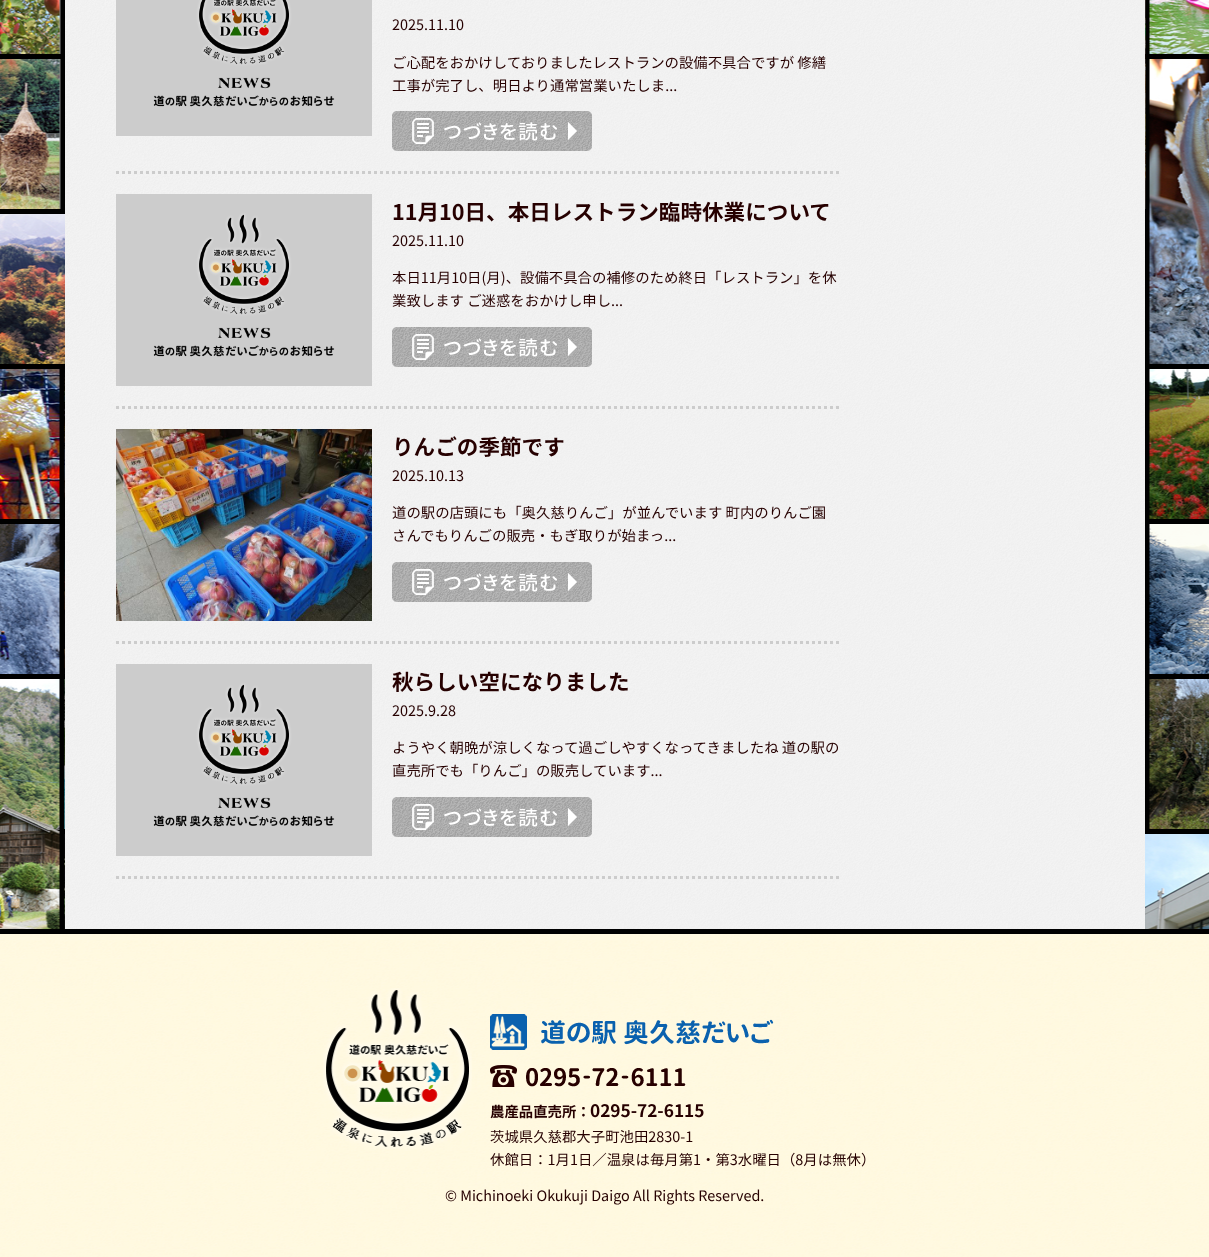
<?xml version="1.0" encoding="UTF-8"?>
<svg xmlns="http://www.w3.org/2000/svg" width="1209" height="1257">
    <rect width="100%" height="100%" fill="#FFFFFF"/>
    <image x="0" y="0" width="1209" height="929" href="img_01.png"/>
    <image x="65" y="0" width="1080" height="929" href="img_02.png"/>
    <path d="M 116 172.5 H 840" fill="none" stroke="#CCCCCC" stroke-width="3" stroke-dasharray="3 3"/>
    <image x="116" y="0" width="256" height="136" href="img_03.png"/>
    <text x="392" y="30" font-family="Noto Sans JP" font-size="14.4" fill="#260000">2025.11.10</text>
    <text font-family="Noto Sans JP" font-size="14.4" fill="#260000">
        <tspan x="392" y="68">ご心配をおかけしておりましたレストランの設備不具合ですが 修繕</tspan>
        <tspan x="392" y="91">工事が完了し、明日より通常営業いたしま...</tspan>
    </text>
    <image x="392" y="111" width="200" height="40" href="img_04.png"/>
    <path d="M 116 407.5 H 840" fill="none" stroke="#CCCCCC" stroke-width="3" stroke-dasharray="3 3"/>
    <image x="116" y="194" width="256" height="192" href="img_05.png"/>
    <text x="392" y="220" font-family="Noto Sans JP" font-size="21.6" font-weight="700" fill="#260000">11月10日、本日レストラン臨時休業について</text>
    <text x="392" y="246" font-family="Noto Sans JP" font-size="14.4" fill="#260000">2025.11.10</text>
    <text font-family="Noto Sans JP" font-size="14.4" fill="#260000">
        <tspan x="392" y="283">本日11月10日(月)、設備不具合の補修のため終日「レストラン」を休</tspan>
        <tspan x="392" y="306">業致します ご迷惑をおかけし申し...</tspan>
    </text>
    <image x="392" y="327" width="200" height="40" href="img_06.png"/>
    <path d="M 116 642.5 H 840" fill="none" stroke="#CCCCCC" stroke-width="3" stroke-dasharray="3 3"/>
    <image x="116" y="429" width="256" height="192" href="img_07.png"/>
    <text x="392" y="455" font-family="Noto Sans JP" font-size="21.6" font-weight="700" fill="#260000">りんごの季節です</text>
    <text x="392" y="481" font-family="Noto Sans JP" font-size="14.4" fill="#260000">2025.10.13</text>
    <text font-family="Noto Sans JP" font-size="14.4" fill="#260000">
        <tspan x="392" y="518">道の駅の店頭にも「奥久慈りんご」が並んでいます 町内のりんご園</tspan>
        <tspan x="392" y="541">さんでもりんごの販売・もぎ取りが始まっ...</tspan>
    </text>
    <image x="392" y="562" width="200" height="40" href="img_08.png"/>
    <path d="M 116 877.5 H 840" fill="none" stroke="#CCCCCC" stroke-width="3" stroke-dasharray="3 3"/>
    <image x="116" y="664" width="256" height="192" href="img_05.png"/>
    <text x="392" y="690" font-family="Noto Sans JP" font-size="21.6" font-weight="700" fill="#260000">秋らしい空になりました</text>
    <text x="392" y="716" font-family="Noto Sans JP" font-size="14.4" fill="#260000">2025.9.28</text>
    <text font-family="Noto Sans JP" font-size="14.4" fill="#260000">
        <tspan x="392" y="753">ようやく朝晩が涼しくなって過ごしやすくなってきましたね 道の駅の</tspan>
        <tspan x="392" y="776">直売所でも「りんご」の販売しています...</tspan>
    </text>
    <image x="392" y="797" width="200" height="40" href="img_09.png"/>
    <image x="0" y="934" width="1209" height="323" href="img_10.png"/>
    <rect x="0" y="929" width="1209" height="5" fill="#000000"/>
    <image x="323" y="988" width="149" height="161" href="img_11.png"/>
    <image x="490" y="1014" width="284" height="36" href="img_12.png"/>
    <image x="490" y="1065" width="196" height="22" href="img_13.png"/>
    <text x="490" y="1117" font-family="Noto Sans JP" font-size="14.4" font-weight="700" fill="#260000">農産品直売所：</text>
    <text x="590" y="1117" font-family="Noto Sans JP" font-size="17.25" font-weight="700" fill="#260000">0295-72-6115</text>
    <text font-family="Noto Sans JP" font-size="14.4" fill="#260000">
        <tspan x="490" y="1142">茨城県久慈郡大子町池田2830-1</tspan>
        <tspan x="490" y="1165">休館日：1月1日／温泉は毎月第1・第3水曜日（8月は無休）</tspan>
    </text>
    <text x="445" y="1201" font-family="Noto Sans JP" font-size="14.4" fill="#260000">© Michinoeki Okukuji Daigo All Rights Reserved.</text>
</svg>
